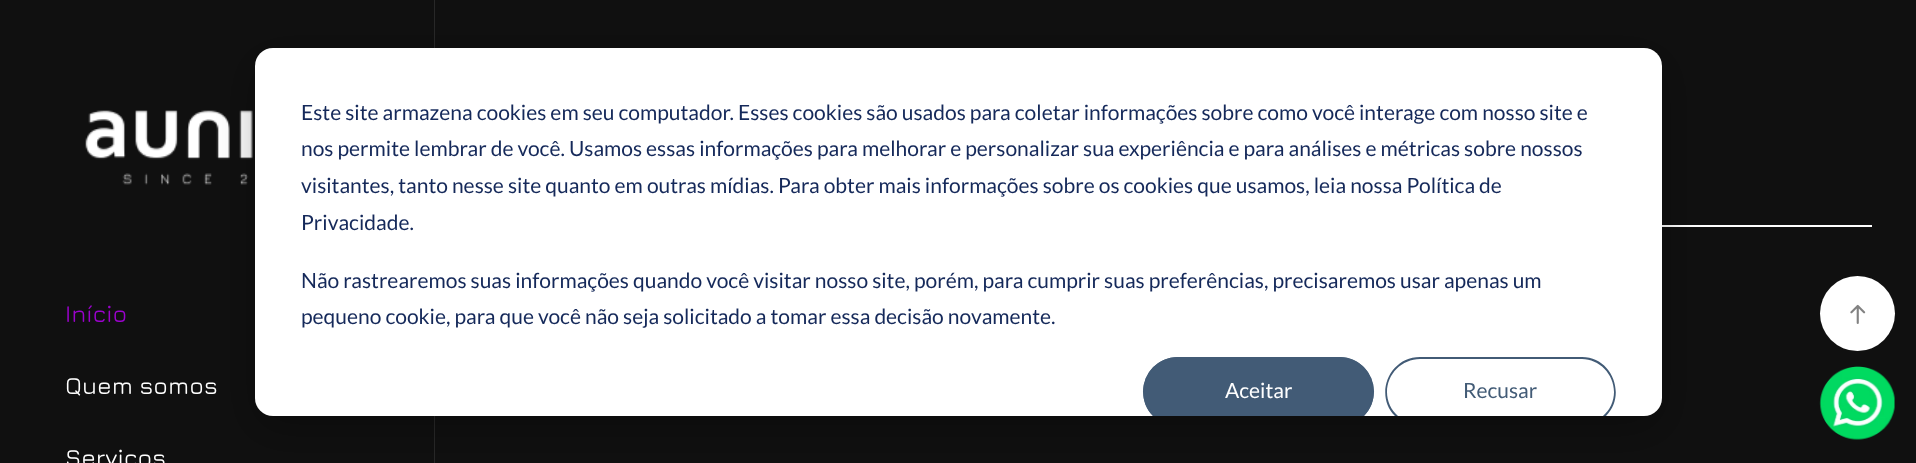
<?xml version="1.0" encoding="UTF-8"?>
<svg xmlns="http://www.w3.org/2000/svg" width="1916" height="463">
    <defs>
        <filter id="blur1" x="-50%" y="-200%" width="200%" height="500%"><feGaussianBlur stdDeviation="21"/></filter>
        <clipPath id="clip1"><rect x="255" y="48" width="1407" height="368" rx="18"/></clipPath>
    </defs>
    <rect width="100%" height="100%" fill="#101010"/>
    <rect x="434" y="0" width="1" height="463" fill="#282828"/>
    <image x="85" y="110" width="168" height="75" href="img_01.png"/>
    <text x="65" y="322" font-family="Jura" font-size="24" font-weight="500" fill="#9A02CC">Início</text>
    <text x="65" y="394" font-family="Jura" font-size="24" font-weight="500" fill="#FFFFFF">Quem somos</text>
    <text x="65" y="466" font-family="Jura" font-size="24" font-weight="500" fill="#FFFFFF">Serviços</text>
    <rect x="1662" y="225" width="210" height="2" fill="#FFFFFF"/>
    <image x="1819" y="366" width="76" height="74" href="img_02.png"/>
    <rect x="255" y="60" width="1407" height="368" rx="18" fill="#000000" fill-opacity="0.28" filter="url(#blur1)"/>
    <rect x="255" y="48" width="1407" height="368" rx="18" fill="#FFFFFF"/>
    <text font-family="Lato" font-size="21" fill="#15295A">
        <tspan x="301" y="120">Este site armazena cookies em seu computador. Esses cookies são usados para coletar informações sobre como você interage com nosso site e</tspan>
        <tspan x="301" y="156">nos permite lembrar de você. Usamos essas informações para melhorar e personalizar sua experiência e para análises e métricas sobre nossos</tspan>
        <tspan x="301" y="193">visitantes, tanto nesse site quanto em outras mídias. Para obter mais informações sobre os cookies que usamos, leia nossa Política de</tspan>
        <tspan x="301" y="230">Privacidade.</tspan>
    </text>
    <text font-family="Lato" font-size="21" fill="#15295A">
        <tspan x="301" y="288">Não rastrearemos suas informações quando você visitar nosso site, porém, para cumprir suas preferências, precisaremos usar apenas um</tspan>
        <tspan x="301" y="324">pequeno cookie, para que você não seja solicitado a tomar essa decisão novamente.</tspan>
    </text>
    <g clip-path="url(#clip1)">
        <rect x="1143" y="357" width="231" height="69" rx="34.5" fill="#425B76"/>
    </g>
    <path d="M 1178 357 C 1147 357 1132 395 1153 416 H 1156 C 1149 410 1145 401 1145 392 C 1145 374 1160 359 1178 359 H 1340 C 1357 359 1372 374 1372 392 C 1372 401 1368 410 1361 416 H 1364 C 1385 395 1370 357 1340 357 Z" fill="#425B76"/>
    <text x="1225" y="398" font-family="Lato" font-size="21" fill="#FFFFFF">Aceitar</text>
    <path d="M 1420 357 C 1389 357 1374 395 1395 416 H 1398 C 1391 410 1387 401 1387 392 C 1387 374 1402 359 1420 359 H 1582 C 1599 359 1614 374 1614 392 C 1614 401 1610 410 1603 416 H 1606 C 1627 395 1612 357 1582 357 Z" fill="#425B76"/>
    <text x="1463" y="398" font-family="Lato" font-size="21" fill="#425B76">Recusar</text>
    <circle cx="1857.5" cy="313.5" r="37.5" fill="#FFFFFF"/>
    <image x="1850" y="304" width="16" height="20" href="img_03.png"/>
</svg>
